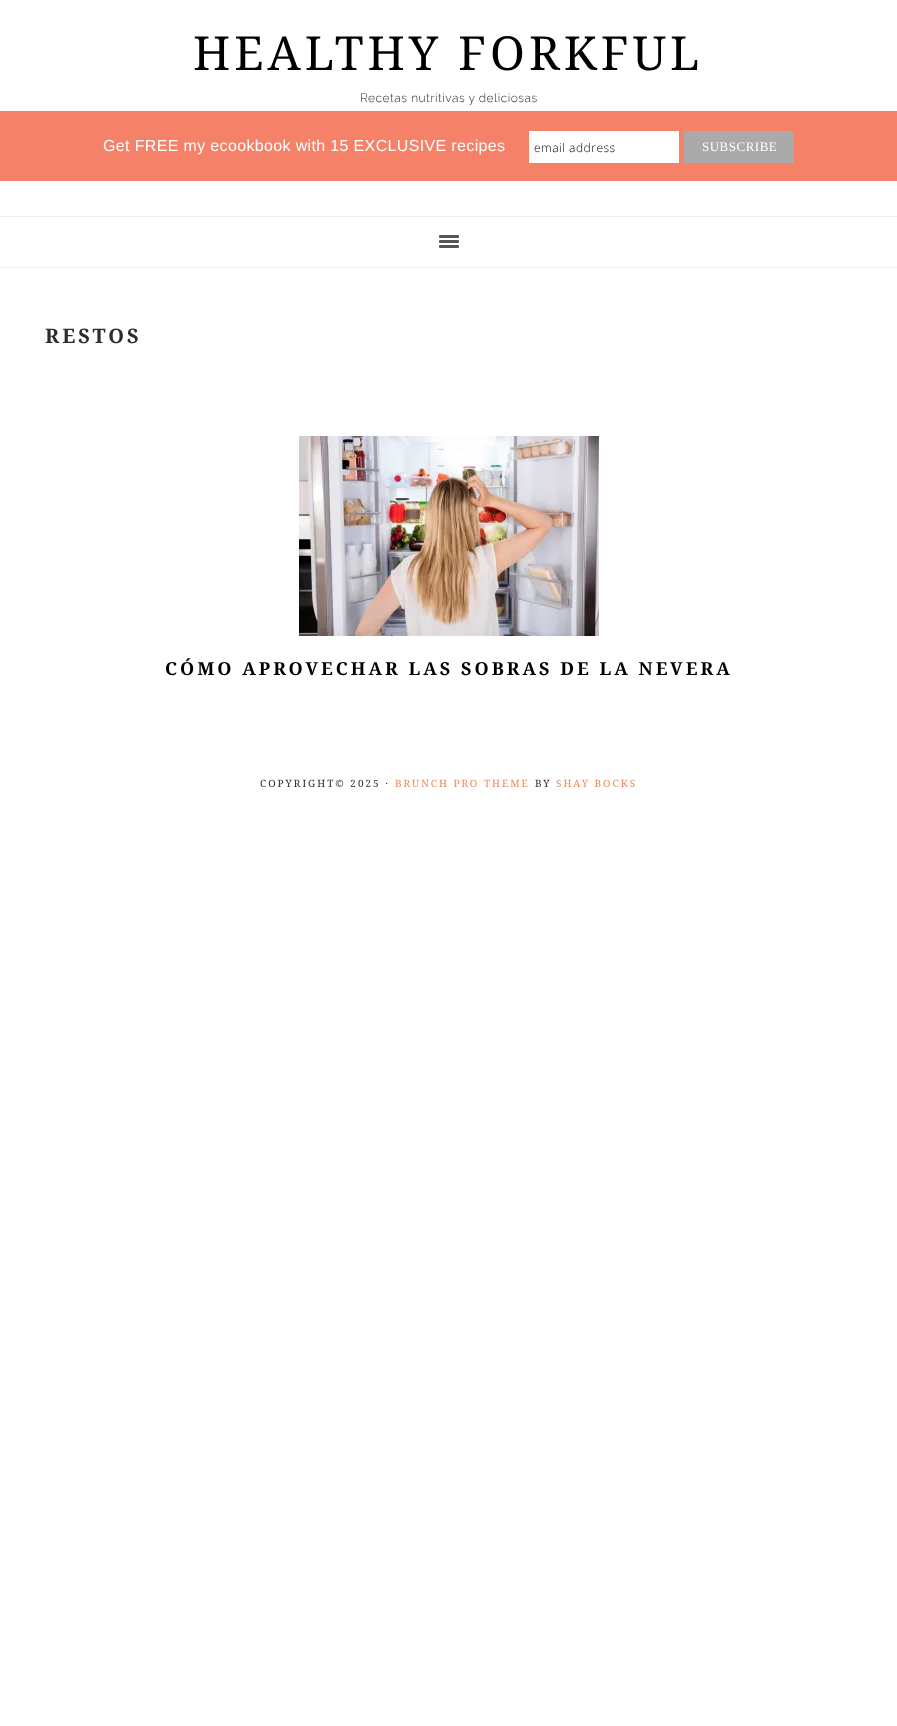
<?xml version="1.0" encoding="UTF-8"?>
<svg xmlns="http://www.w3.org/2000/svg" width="897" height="1726">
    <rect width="100%" height="100%" fill="#FFFFFF"/>
    <text x="193" y="70" font-family="Droid Serif" font-size="47" letter-spacing="4" fill="#000000">HEALTHY FORKFUL</text>
    <text x="360" y="102" font-family="Raleway" font-size="12" font-weight="300" letter-spacing="0.5" fill="#302A2C">Recetas nutritivas y deliciosas</text>
    <rect x="0" y="111" width="897" height="70" fill="#F58168"/>
    <text x="103" y="151" font-family="Liberation Sans" font-size="16" letter-spacing="0.35" fill="#FFFFFF">Get FREE my ecookbook with 15 EXCLUSIVE recipes</text>
    <rect x="529" y="131" width="150" height="32" fill="#FFFFFF"/>
    <text x="534" y="152" font-family="Open Sans" font-size="12" font-weight="300" letter-spacing="0.5" fill="#000000">email address</text>
    <rect x="684" y="131" width="110" height="32" fill="#AAAAAA"/>
    <text x="702" y="151" font-family="Liberation Serif" font-size="13" letter-spacing="0.5" fill="#FFFFFF">SUBSCRIBE</text>
    <rect x="0" y="216" width="897" height="1" fill="#EEEEEE"/>
    <rect x="0" y="267" width="897" height="1" fill="#EEEEEE"/>
    <rect x="439" y="240" width="20" height="3" rx="1" fill="#555555"/>
    <rect x="439" y="235" width="20" height="3" rx="1" fill="#555555"/>
    <rect x="439" y="245" width="20" height="3" rx="1" fill="#555555"/>
    <text x="45" y="343" font-family="Droid Serif" font-size="20" font-weight="700" letter-spacing="3" fill="#302A2C">RESTOS</text>
    <image x="299" y="436" width="300" height="200" href="img_01.png"/>
    <text x="165" y="675" font-family="Droid Serif" font-size="18" font-weight="700" letter-spacing="3" fill="#000000">CÓMO APROVECHAR LAS SOBRAS DE LA NEVERA</text>
    <text x="260" y="787" font-family="Droid Serif" font-size="10" letter-spacing="2" fill="#302A2C">COPYRIGHT© 2025 ·</text>
    <text x="395" y="787" font-family="Droid Serif" font-size="10" letter-spacing="2" fill="#F1855B">BRUNCH PRO THEME</text>
    <text x="535" y="787" font-family="Droid Serif" font-size="10" letter-spacing="2" fill="#302A2C">BY</text>
    <text x="556" y="787" font-family="Droid Serif" font-size="10" letter-spacing="2" fill="#F1855B">SHAY BOCKS</text>
</svg>
